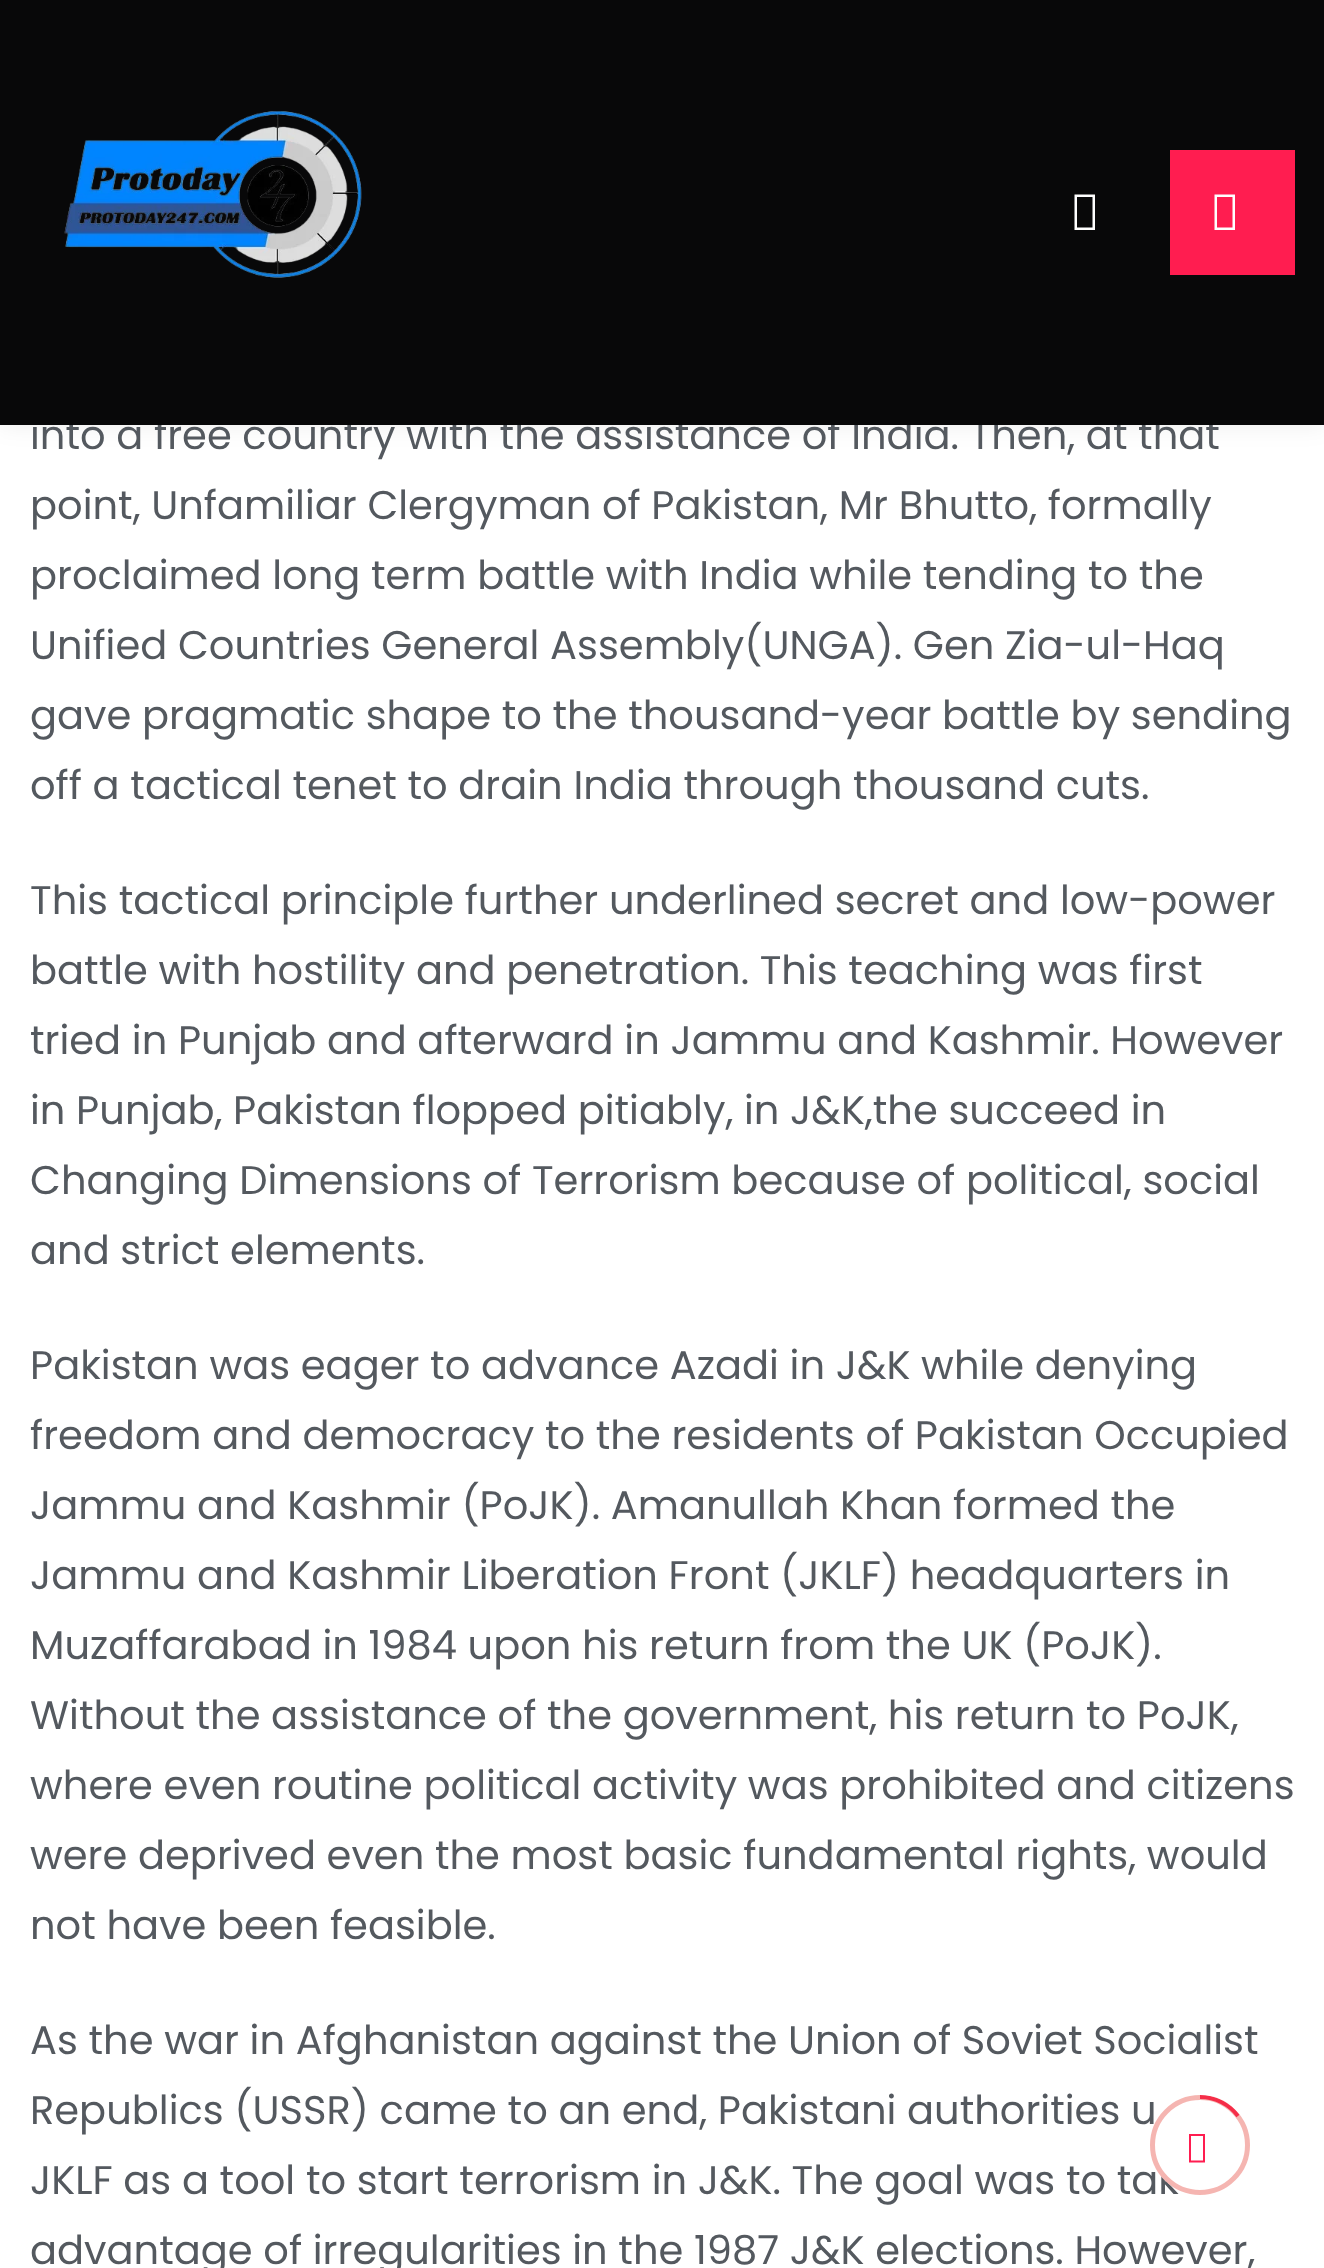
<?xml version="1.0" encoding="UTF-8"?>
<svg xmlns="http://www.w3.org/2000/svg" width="1324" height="2268">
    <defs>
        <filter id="blur1" x="-50%" y="-200%" width="200%" height="500%"><feGaussianBlur stdDeviation="12.5"/></filter>
        <clipPath id="clip1"><rect x="1150" y="2095" width="100" height="100" rx="50"/></clipPath>
    </defs>
    <rect width="100%" height="100%" fill="#FFFFFF"/>
    <rect x="0" y="0" width="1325" height="425" fill="#000000" fill-opacity="0.07" filter="url(#blur1)"/>
    <text x="30" y="449" font-family="Poppins" font-size="40" fill="#54595F">into a free country with the assistance of India. Then, at that</text>
    <rect x="0" y="0" width="1324" height="425" fill="#080809"/>
    <image x="64" y="111" width="298" height="167" href="img_01.png"/>
    <path d="M 1074.5 230 V 194.5 H 1095 V 230 Z M 1077 227.5 H 1092.5 V 197 H 1077 Z" fill="#FFFFFF"/>
    <rect x="1170" y="150" width="125" height="125" fill="#FF1D50"/>
    <path d="M 1214.5 230 V 194.5 H 1235 V 230 Z M 1217 227.5 H 1232.5 V 197 H 1217 Z" fill="#FFFFFF"/>
    <text font-family="Poppins" font-size="40" fill="#54595F">
        <tspan x="30" y="519">point, Unfamiliar Clergyman of Pakistan, Mr Bhutto, formally</tspan>
        <tspan x="30" y="589">proclaimed long term battle with India while tending to the</tspan>
        <tspan x="30" y="659">Unified Countries General Assembly(UNGA). Gen Zia-ul-Haq</tspan>
        <tspan x="30" y="729">gave pragmatic shape to the thousand-year battle by sending</tspan>
        <tspan x="30" y="799">off a tactical tenet to drain India through thousand cuts.</tspan>
    </text>
    <text font-family="Poppins" font-size="40" fill="#54595F">
        <tspan x="30" y="914">This tactical principle further underlined secret and low-power</tspan>
        <tspan x="30" y="984">battle with hostility and penetration. This teaching was first</tspan>
        <tspan x="30" y="1054">tried in Punjab and afterward in Jammu and Kashmir. However</tspan>
        <tspan x="30" y="1124">in Punjab, Pakistan flopped pitiably, in J&amp;K,the succeed in</tspan>
        <tspan x="30" y="1194">Changing Dimensions of Terrorism because of political, social</tspan>
        <tspan x="30" y="1264">and strict elements.</tspan>
    </text>
    <text font-family="Poppins" font-size="40" fill="#54595F">
        <tspan x="30" y="1379">Pakistan was eager to advance Azadi in J&amp;K while denying</tspan>
        <tspan x="30" y="1449">freedom and democracy to the residents of Pakistan Occupied</tspan>
        <tspan x="30" y="1519">Jammu and Kashmir (PoJK). Amanullah Khan formed the</tspan>
        <tspan x="30" y="1589">Jammu and Kashmir Liberation Front (JKLF) headquarters in</tspan>
        <tspan x="30" y="1659">Muzaffarabad in 1984 upon his return from the UK (PoJK).</tspan>
        <tspan x="30" y="1729">Without the assistance of the government, his return to PoJK,</tspan>
        <tspan x="30" y="1799">where even routine political activity was prohibited and citizens</tspan>
        <tspan x="30" y="1869">were deprived even the most basic fundamental rights, would</tspan>
        <tspan x="30" y="1939">not have been feasible.</tspan>
    </text>
    <text font-family="Poppins" font-size="40" fill="#54595F">
        <tspan x="30" y="2054">As the war in Afghanistan against the Union of Soviet Socialist</tspan>
        <tspan x="30" y="2124">Republics (USSR) came to an end, Pakistani authorities u</tspan>
        <tspan x="30" y="2194">JKLF as a tool to start terrorism in J&amp;K. The goal was to tak</tspan>
        <tspan x="30" y="2264">advantage of irregularities in the 1987 J&amp;K elections. However,</tspan>
    </text>
    <circle cx="1200" cy="2145" r="50" fill="#FFFFFF"/>
    <g clip-path="url(#clip1)">
        <path d="M 1200 2097 C 1215.5 2097 1229.5 2104.5 1238 2116" fill="none" stroke="#FF1D50" stroke-width="3.9"/>
    </g>
    <circle cx="1200" cy="2145" r="47.5" fill="none" stroke="#E7473C" stroke-opacity="0.4" stroke-width="5"/>
    <path d="M 1189 2162.5 V 2134 H 1205 V 2162.5 Z M 1191 2160.5 H 1203 V 2136 H 1191 Z" fill="#FF1D50"/>
</svg>
